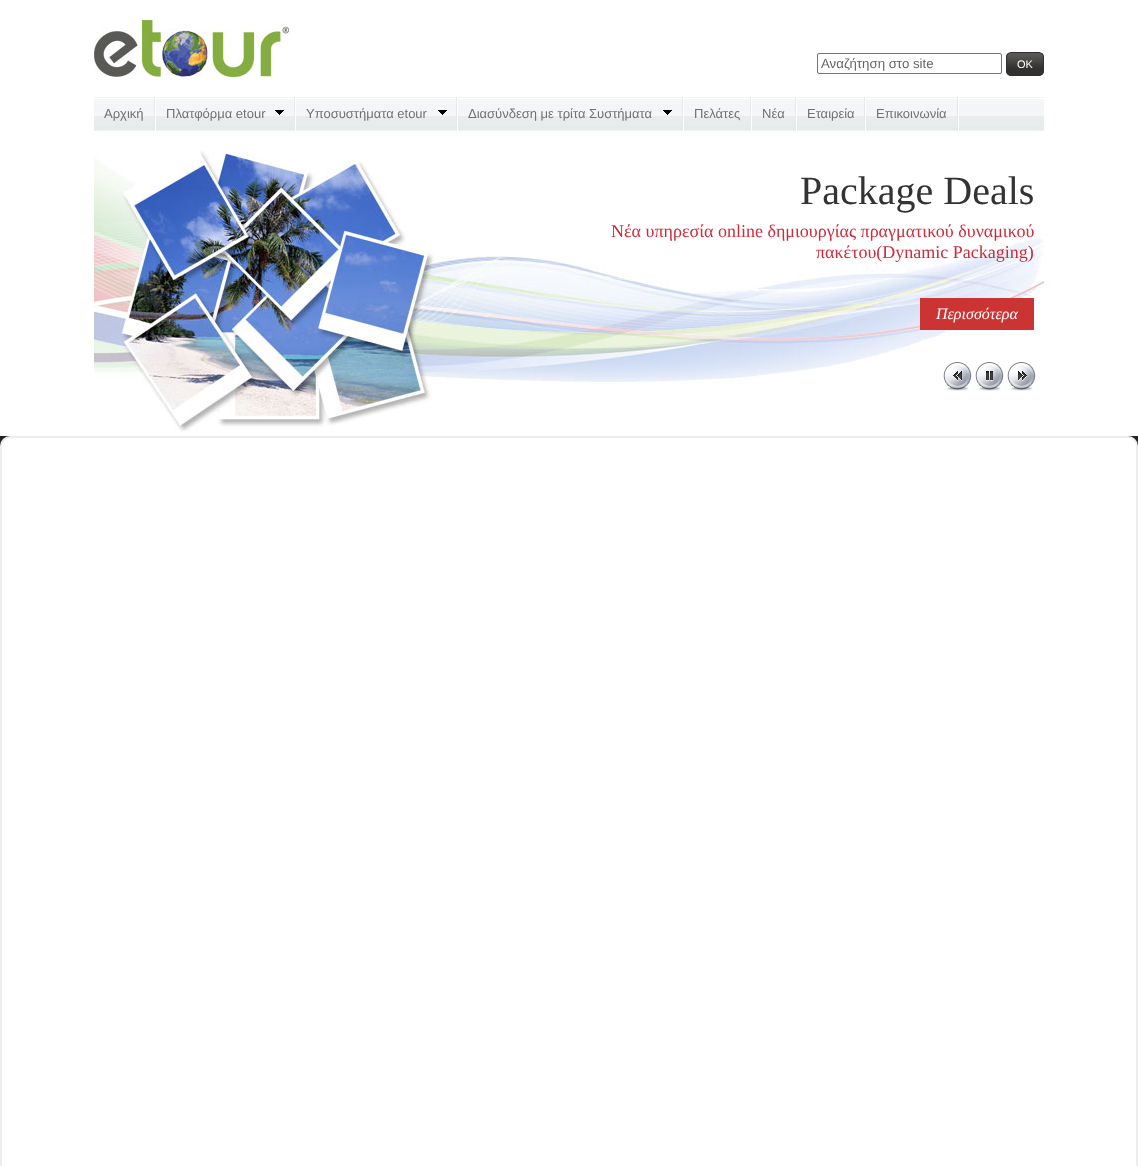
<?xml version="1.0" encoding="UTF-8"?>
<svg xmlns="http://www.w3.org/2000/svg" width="1138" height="1166">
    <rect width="100%" height="100%" fill="#FFFFFF"/>
    <image x="94" y="20" width="199" height="57" href="img_01.png"/>
    <rect x="817.5" y="53.5" width="184" height="20" rx="1.5" fill="none" stroke="#767676"/>
    <text x="821" y="68" font-family="Liberation Sans" font-size="13.25" fill="#666666">Αναζήτηση στο site</text>
    <image x="1006" y="53" width="38" height="23" href="img_02.png"/>
    <rect x="1006.5" y="52.5" width="37" height="23" rx="4.5" fill="none" stroke="#32312F"/>
    <text x="1017" y="68" font-family="Liberation Sans" font-size="11" fill="#FFFFFF">OK</text>
    <image x="94" y="97" width="950" height="34" href="img_03.png"/>
    <rect x="155" y="97" width="1" height="34" fill="#FFFFFF"/>
    <rect x="154" y="97" width="1" height="34" fill="#E7E9E8"/>
    <text x="104" y="118" font-family="Liberation Sans" font-size="13" fill="#717171">Αρχική</text>
    <rect x="295" y="97" width="1" height="34" fill="#FFFFFF"/>
    <rect x="294" y="97" width="1" height="34" fill="#E7E9E8"/>
    <text x="166" y="118" font-family="Liberation Sans" font-size="13" fill="#717171">Πλατφόρμα etour</text>
    <image x="275" y="110" width="9" height="5" href="img_04.png"/>
    <rect x="457" y="97" width="1" height="34" fill="#FFFFFF"/>
    <rect x="456" y="97" width="1" height="34" fill="#E7E9E8"/>
    <text x="306" y="118" font-family="Liberation Sans" font-size="13" fill="#717171">Υποσυστήματα etour</text>
    <image x="438" y="110" width="9" height="5" href="img_04.png"/>
    <rect x="683" y="97" width="1" height="34" fill="#FFFFFF"/>
    <rect x="682" y="97" width="1" height="34" fill="#E7E9E8"/>
    <text x="468" y="118" font-family="Liberation Sans" font-size="13" fill="#717171">Διασύνδεση με τρίτα Συστήματα</text>
    <image x="663" y="110" width="9" height="5" href="img_04.png"/>
    <rect x="751" y="97" width="1" height="34" fill="#FFFFFF"/>
    <rect x="750" y="97" width="1" height="34" fill="#E7E9E8"/>
    <text x="694" y="118" font-family="Liberation Sans" font-size="13" fill="#717171">Πελάτες</text>
    <rect x="796" y="97" width="1" height="34" fill="#FFFFFF"/>
    <rect x="795" y="97" width="1" height="34" fill="#E7E9E8"/>
    <text x="762" y="118" font-family="Liberation Sans" font-size="13" fill="#717171">Νέα</text>
    <rect x="865" y="97" width="1" height="34" fill="#FFFFFF"/>
    <rect x="864" y="97" width="1" height="34" fill="#E7E9E8"/>
    <text x="807" y="118" font-family="Liberation Sans" font-size="13" fill="#717171">Εταιρεία</text>
    <rect x="958" y="97" width="1" height="34" fill="#FFFFFF"/>
    <rect x="957" y="97" width="1" height="34" fill="#E7E9E8"/>
    <text x="876" y="118" font-family="Liberation Sans" font-size="13" fill="#717171">Επικοινωνία</text>
    <image x="94" y="151" width="950" height="281" href="img_05.png"/>
    <text x="800" y="204" font-family="Liberation Serif" font-size="40" fill="#333333">Package Deals</text>
    <text x="611" y="237" font-family="Liberation Serif" font-size="18" fill="#CD2B3A">Νέα υπηρεσία online δημιουργίας πραγματικού δυναμικού</text>
    <text x="816" y="258" font-family="Liberation Serif" font-size="18" fill="#CD2B3A">πακέτου(Dynamic Packaging)</text>
    <rect x="920" y="298" width="114" height="32" fill="#CC3333"/>
    <text x="936" y="319" font-family="Liberation Serif" font-size="16" font-style="italic" fill="#FFFFFF">Περισσότερα</text>
    <image x="943" y="362" width="29" height="29" href="img_06.png"/>
    <image x="975" y="362" width="29" height="29" href="img_07.png"/>
    <image x="1007" y="362" width="29" height="29" href="img_08.png"/>
    <rect x="0" y="436" width="1138" height="10" fill="#232323"/>
    <rect x="1" y="437" width="1136" height="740" rx="9" fill="#FFFFFF" stroke="#EDEDED" stroke-width="2"/>
</svg>
